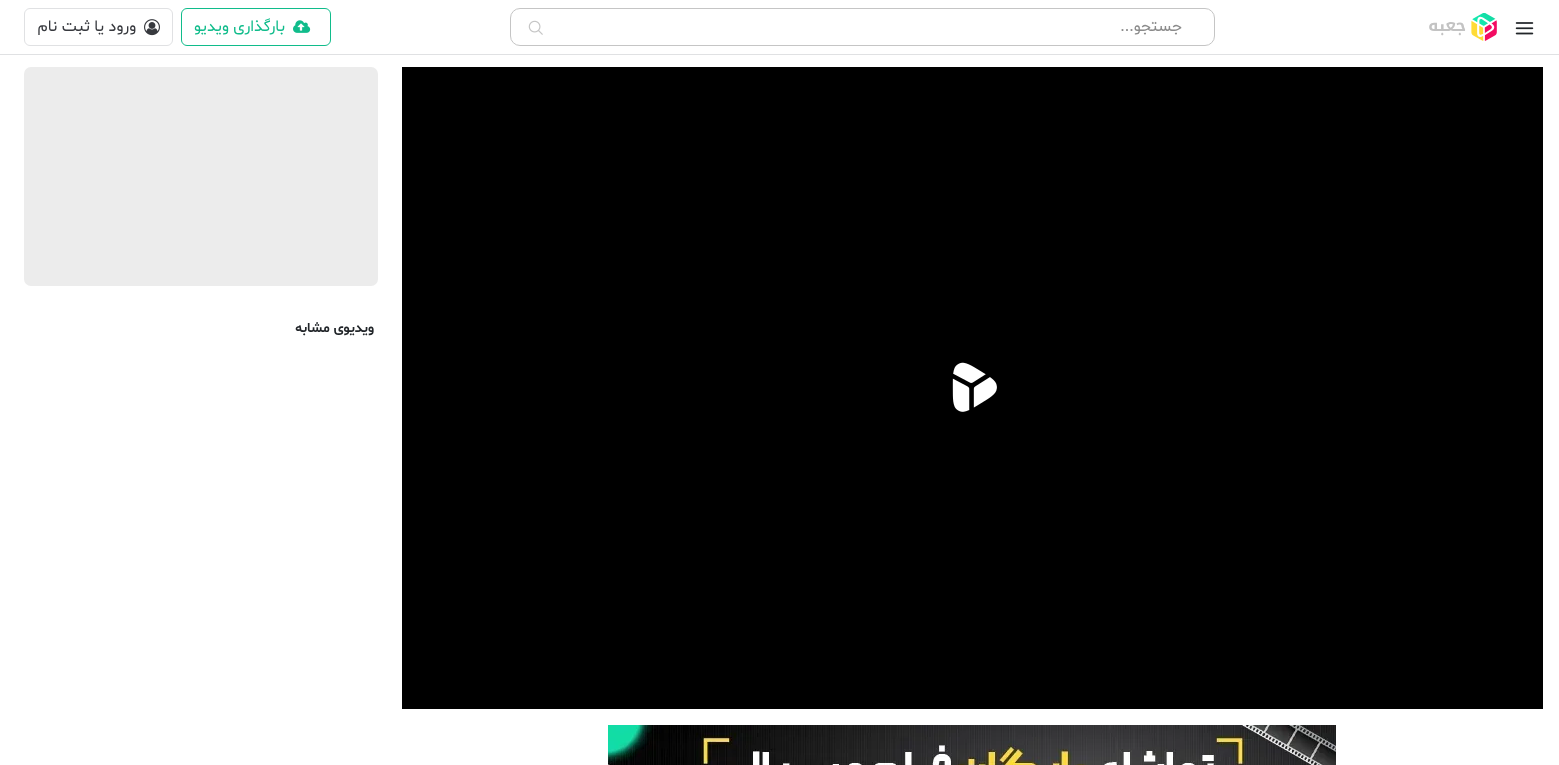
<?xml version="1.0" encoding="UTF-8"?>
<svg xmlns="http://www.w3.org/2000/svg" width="1559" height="765">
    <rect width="100%" height="100%" fill="#FFFFFF"/>
    <rect x="0" y="54" width="1559" height="1" fill="#E0E1E3"/>
    <image x="1515" y="22" width="19" height="13" href="img_01.png"/>
    <image x="1429" y="13" width="68" height="28" href="img_02.png"/>
    <image x="528" y="20" width="15" height="15" href="img_03.png"/>
    <rect x="510.5" y="8.5" width="704" height="37" rx="9.5" fill="none" stroke="#C5C5C5"/>
    <text x="1182" y="31" font-family="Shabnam" font-size="16" direction="rtl" fill="#8B8B8B">جستجو...</text>
    <rect x="181.5" y="8.5" width="149" height="37" rx="5.5" fill="none" stroke="#10BC8B"/>
    <image x="293" y="20" width="18" height="13" href="img_04.png"/>
    <text x="285" y="31" font-family="Shabnam" font-size="16" direction="rtl" fill="#10BC8B">بارگذاری ویدیو</text>
    <rect x="24.5" y="8.5" width="148" height="37" rx="5.5" fill="none" stroke="#E0E1E3"/>
    <image x="144" y="19" width="16" height="17" href="img_05.png"/>
    <text x="136" y="31" font-family="Shabnam" font-size="16" direction="rtl" fill="#37393E">ورود یا ثبت نام</text>
    <rect x="402" y="67" width="1141" height="642" fill="#000000"/>
    <image x="608" y="725" width="728" height="40" href="img_06.png"/>
    <rect x="24" y="67" width="354" height="219" rx="7" fill="#ECECEC"/>
    <text x="374" y="332" font-family="Shabnam" font-size="14" font-weight="700" direction="rtl" fill="#212529">ویدیوی مشابه</text>
    <image x="952" y="362" width="45" height="50" href="img_07.png"/>
</svg>
